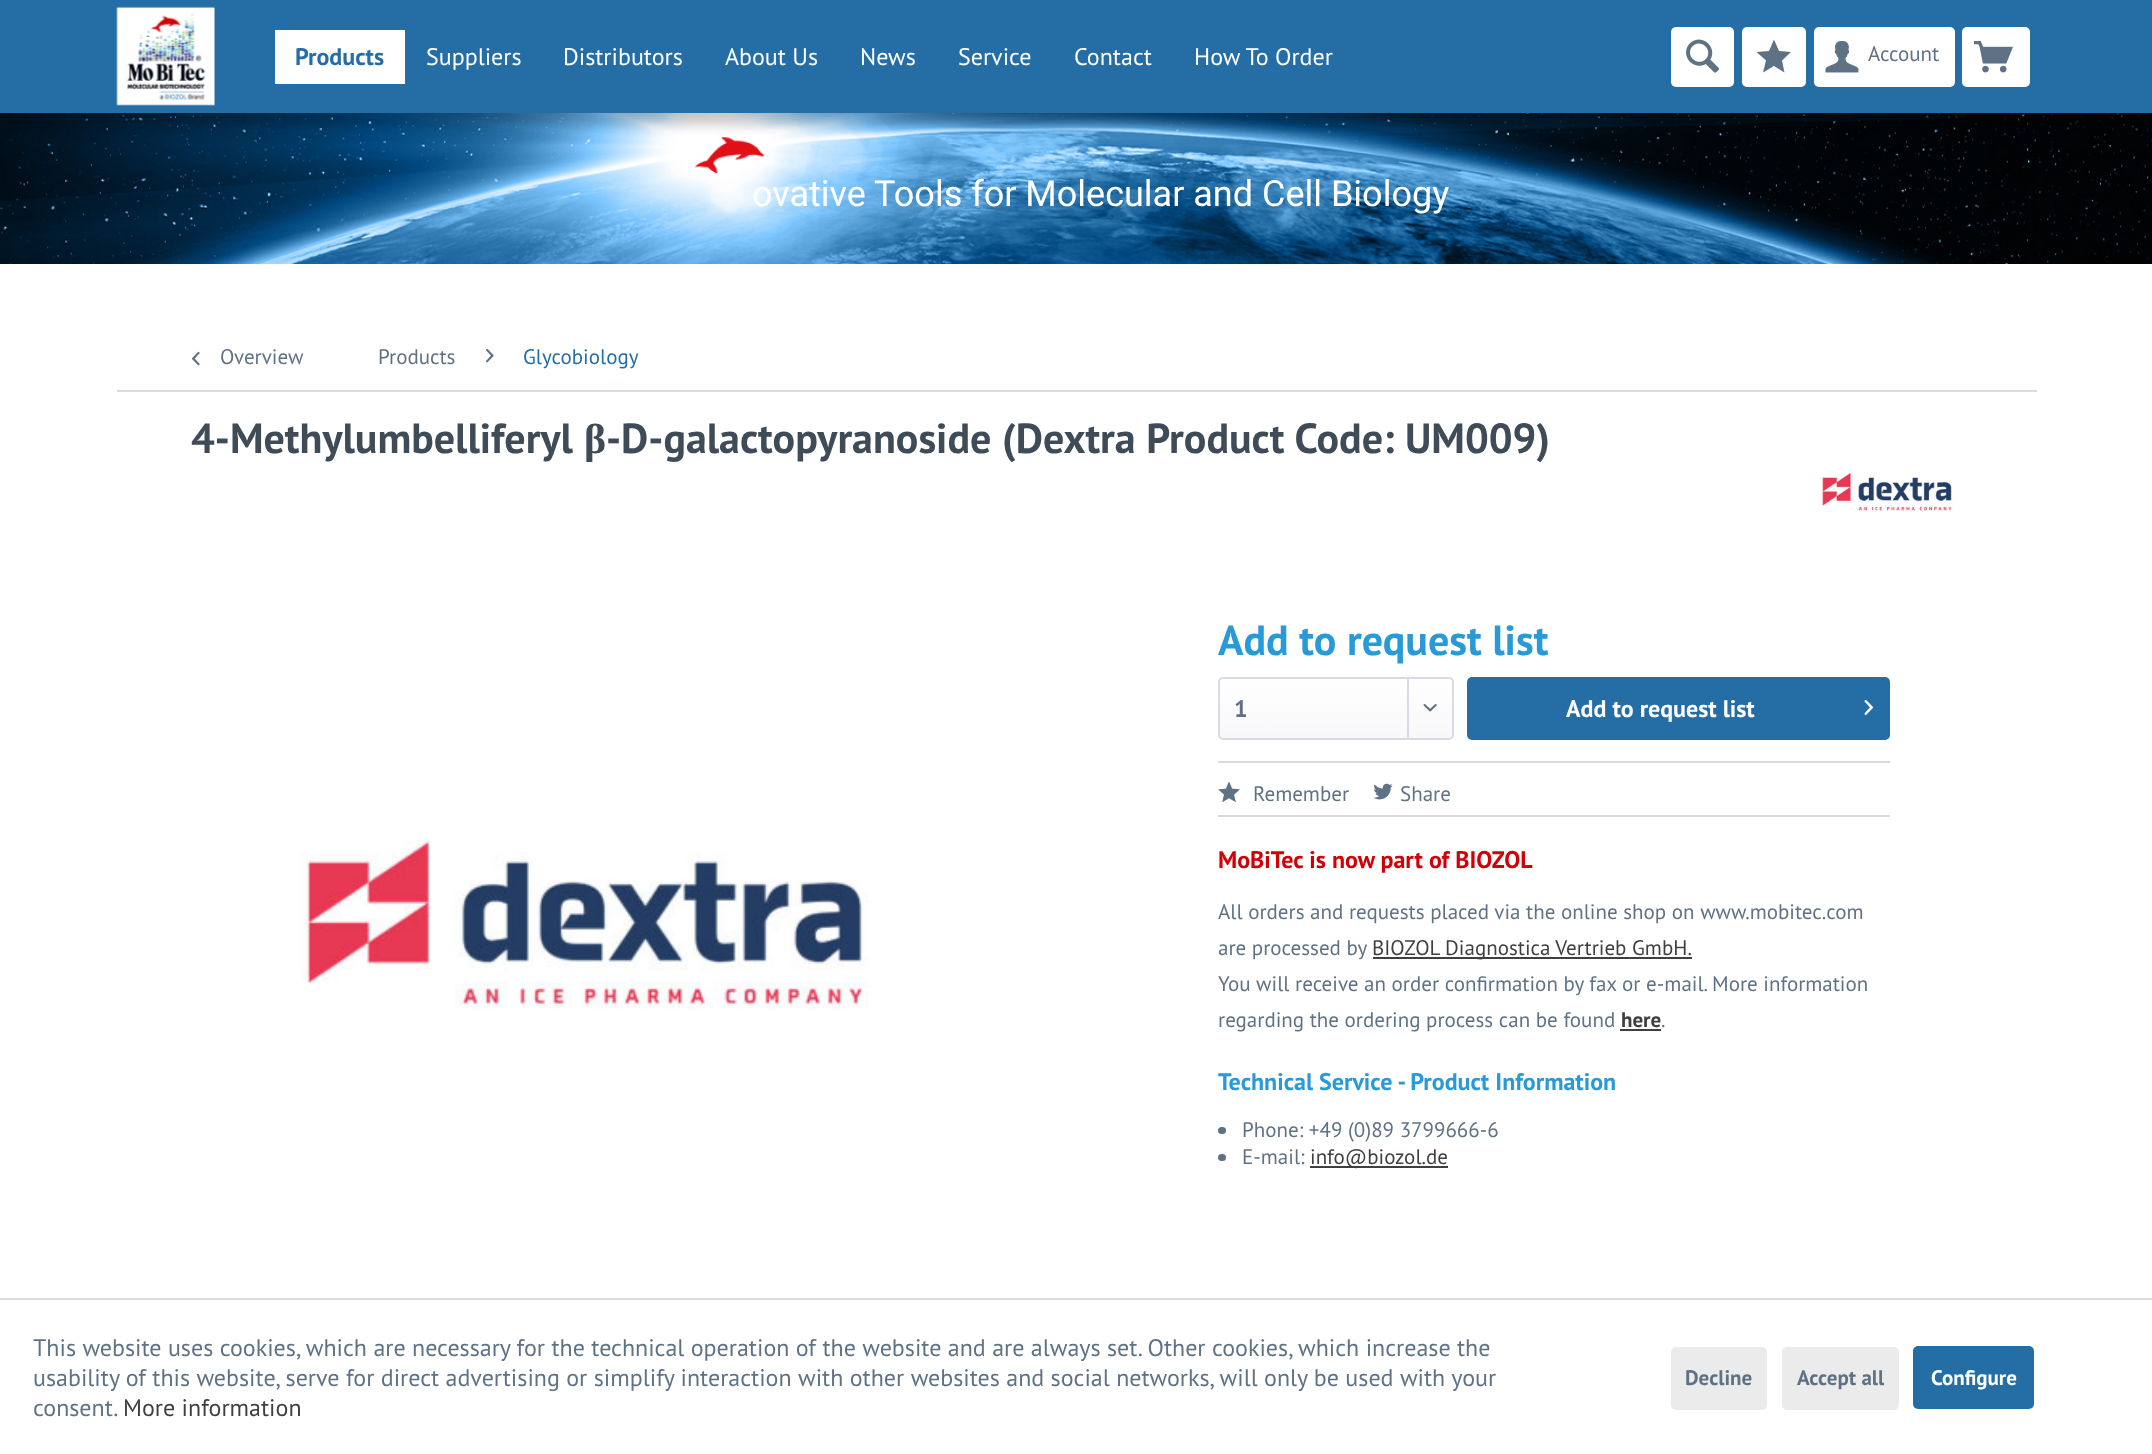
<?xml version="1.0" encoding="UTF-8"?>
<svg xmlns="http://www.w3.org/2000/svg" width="2152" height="1454">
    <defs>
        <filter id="blur1" x="-50%" y="-200%" width="200%" height="500%"><feGaussianBlur stdDeviation="6"/></filter>
        <linearGradient id="g1" gradientUnits="userSpaceOnUse" x1="1336" y1="678" x2="1336" y2="738"><stop offset="0" stop-color="#FFFFFF"/><stop offset="1" stop-color="#F8F8FA"/></linearGradient>
    </defs>
    <rect width="100%" height="100%" fill="#FFFFFF"/>
    <image x="0" y="113" width="2152" height="151" href="img_05.png"/>
    <rect x="0" y="12" width="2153" height="113" fill="#000000" fill-opacity="0.2" filter="url(#blur1)"/>
    <rect x="0" y="0" width="2152" height="113" fill="#256EA5"/>
    <image x="116" y="6" width="99" height="100" href="img_01.png"/>
    <rect x="275" y="30" width="130" height="54" fill="#FFFFFF"/>
    <text x="295" y="65" font-family="PT Sans" font-size="24" font-weight="700" fill="#256EA5">Products</text>
    <text x="426" y="65" font-family="PT Sans" font-size="24" fill="#FFFFFF">Suppliers</text>
    <text x="563" y="65" font-family="PT Sans" font-size="24" fill="#FFFFFF">Distributors</text>
    <text x="725" y="65" font-family="PT Sans" font-size="24" fill="#FFFFFF">About Us</text>
    <text x="860" y="65" font-family="PT Sans" font-size="24" fill="#FFFFFF">News</text>
    <text x="958" y="65" font-family="PT Sans" font-size="24" fill="#FFFFFF">Service</text>
    <text x="1074" y="65" font-family="PT Sans" font-size="24" fill="#FFFFFF">Contact</text>
    <text x="1194" y="65" font-family="PT Sans" font-size="24" fill="#FFFFFF">How To Order</text>
    <rect x="1671" y="27" width="63" height="60" rx="5" fill="#FFFFFF"/>
    <image x="1686" y="39" width="33" height="34" href="img_02.png"/>
    <rect x="1742" y="27" width="64" height="60" rx="5" fill="#FFFFFF"/>
    <path d="M 1774 39.5 L 1769 51 L 1756.5 52 L 1766 60.5 L 1763 72.5 L 1774 66 L 1784.5 72.5 L 1782 60.5 L 1791 52 L 1779 51 Z" fill="#5F7285"/>
    <rect x="1814" y="27" width="141" height="60" rx="5" fill="#FFFFFF"/>
    <image x="1825" y="41" width="34" height="32" href="img_03.png"/>
    <text x="1868" y="61" font-family="PT Sans" font-size="21" fill="#5F7285">Account</text>
    <rect x="1962" y="27" width="68" height="60" rx="5" fill="#FFFFFF"/>
    <image x="1974" y="41" width="39" height="32" href="img_04.png"/>
    <text x="752" y="206" font-family="Roboto" font-size="36" fill="#FFFFFF">ovative Tools for Molecular and Cell Biology</text>
    <rect x="117" y="390" width="1920" height="2" fill="#DADAE5"/>
    <image x="192" y="351" width="8" height="15" href="img_06.png"/>
    <text x="220" y="364" font-family="PT Sans" font-size="21" fill="#5F7285">Overview</text>
    <text x="378" y="364" font-family="PT Sans" font-size="21" fill="#5F7285">Products</text>
    <image x="486" y="348" width="8" height="15" href="img_07.png"/>
    <text x="523" y="364" font-family="PT Sans" font-size="21" fill="#256EA5">Glycobiology</text>
    <text x="191" y="453" font-family="PT Sans" font-size="42" font-weight="700" fill="#3F4C58">4-Methylumbelliferyl</text>
    <text x="584" y="453" font-family="Liberation Serif" font-size="42" font-weight="700" fill="#3F4C58">β</text>
    <text x="606" y="453" font-family="PT Sans" font-size="42" font-weight="700" fill="#3F4C58">-D-galactopyranoside (Dextra Product Code: UM009)</text>
    <image x="1821" y="472" width="132" height="40" href="img_08.png"/>
    <image x="301" y="840" width="568" height="169" href="img_09.png"/>
    <text x="1218" y="655" font-family="PT Sans" font-size="42" font-weight="700" fill="#289AD8">Add to request list</text>
    <rect x="1220" y="678" width="232" height="60" rx="3" fill="url(#g1)"/>
    <rect x="1219" y="678" width="234" height="61" rx="4" fill="none" stroke="#DADAE5" stroke-width="2"/>
    <text x="1234" y="717" font-family="PT Sans" font-size="24" font-weight="700" fill="#5F7285">1</text>
    <rect x="1407" y="678" width="2" height="60" fill="#DADAE5"/>
    <image x="1423" y="704" width="14" height="8" href="img_10.png"/>
    <rect x="1467" y="677" width="423" height="63" rx="5" fill="#256EA5"/>
    <text x="1566" y="717" font-family="PT Sans" font-size="24" font-weight="700" fill="#FFFFFF">Add to request list</text>
    <image x="1864" y="700" width="9" height="15" href="img_11.png"/>
    <rect x="1218" y="761" width="672" height="2" fill="#DADAE5"/>
    <rect x="1218" y="815" width="672" height="2" fill="#DADAE5"/>
    <image x="1218" y="781" width="22" height="22" href="img_12.png"/>
    <text x="1253" y="801" font-family="PT Sans" font-size="21" fill="#5F7285">Remember</text>
    <image x="1373" y="783" width="20" height="17" href="img_13.png"/>
    <text x="1400" y="801" font-family="PT Sans" font-size="21" fill="#5F7285">Share</text>
    <text x="1218" y="868" font-family="PT Sans" font-size="24" font-weight="700" fill="#D10007">MoBiTec is now part of BIOZOL</text>
    <text font-family="PT Sans" font-size="21" fill="#5F7285">
        <tspan x="1218" y="919">All orders and requests placed via the online shop on www.mobitec.com</tspan>
        <tspan x="1218" y="955">are processed by</tspan>
    </text>
    <rect x="1373" y="957" width="319" height="2" fill="#3F3F3F"/>
    <text x="1372" y="955" font-family="PT Sans" font-size="21" fill="#3F3F3F">BIOZOL Diagnostica Vertrieb GmbH.</text>
    <text font-family="PT Sans" font-size="21" fill="#5F7285">
        <tspan x="1218" y="991">You will receive an order confirmation by fax or e-mail. More information</tspan>
        <tspan x="1218" y="1027">regarding the ordering process can be found</tspan>
    </text>
    <text x="1621" y="1027" font-family="PT Sans" font-size="21" font-weight="700" fill="#3F3F3F">here</text>
    <rect x="1620" y="1029" width="41" height="2" fill="#3F3F3F"/>
    <text x="1661" y="1027" font-family="PT Sans" font-size="21" fill="#5F7285">.</text>
    <text x="1218" y="1090" font-family="PT Sans" font-size="24" font-weight="700" fill="#289AD8">Technical Service - Product Information</text>
    <rect x="1218" y="1127" width="8" height="7" rx="3.5" fill="#5F7285"/>
    <text x="1242" y="1137" font-family="PT Sans" font-size="21" fill="#5F7285">Phone: +49 (0)89 3799666-6</text>
    <rect x="1218" y="1154" width="8" height="7" rx="3.5" fill="#5F7285"/>
    <text x="1242" y="1164" font-family="PT Sans" font-size="21" fill="#5F7285">E-mail:</text>
    <rect x="1310" y="1166" width="138" height="2" fill="#3F3F3F"/>
    <text x="1310" y="1164" font-family="PT Sans" font-size="21" fill="#3F3F3F">info@biozol.de</text>
    <rect x="0" y="1298" width="2152" height="2" fill="#DADAE5"/>
    <text font-family="PT Sans" font-size="24" fill="#5F7285">
        <tspan x="33" y="1356">This website uses cookies, which are necessary for the technical operation of the website and are always set. Other cookies, which increase the</tspan>
        <tspan x="33" y="1386">usability of this website, serve for direct advertising or simplify interaction with other websites and social networks, will only be used with your</tspan>
        <tspan x="33" y="1416">consent.</tspan>
    </text>
    <text x="123" y="1416" font-family="PT Sans" font-size="24" fill="#3F3F3F">More information</text>
    <rect x="1671" y="1347" width="96" height="63" rx="5" fill="#EBEBEB"/>
    <text x="1685" y="1385" font-family="PT Sans" font-size="21" font-weight="700" fill="#5F7285">Decline</text>
    <rect x="1782" y="1347" width="117" height="63" rx="5" fill="#EBEBEB"/>
    <text x="1797" y="1385" font-family="PT Sans" font-size="21" font-weight="700" fill="#5F7285">Accept all</text>
    <rect x="1913" y="1346" width="121" height="63" rx="5" fill="#256EA5"/>
    <text x="1931" y="1385" font-family="PT Sans" font-size="21" font-weight="700" fill="#FFFFFF">Configure</text>
</svg>
